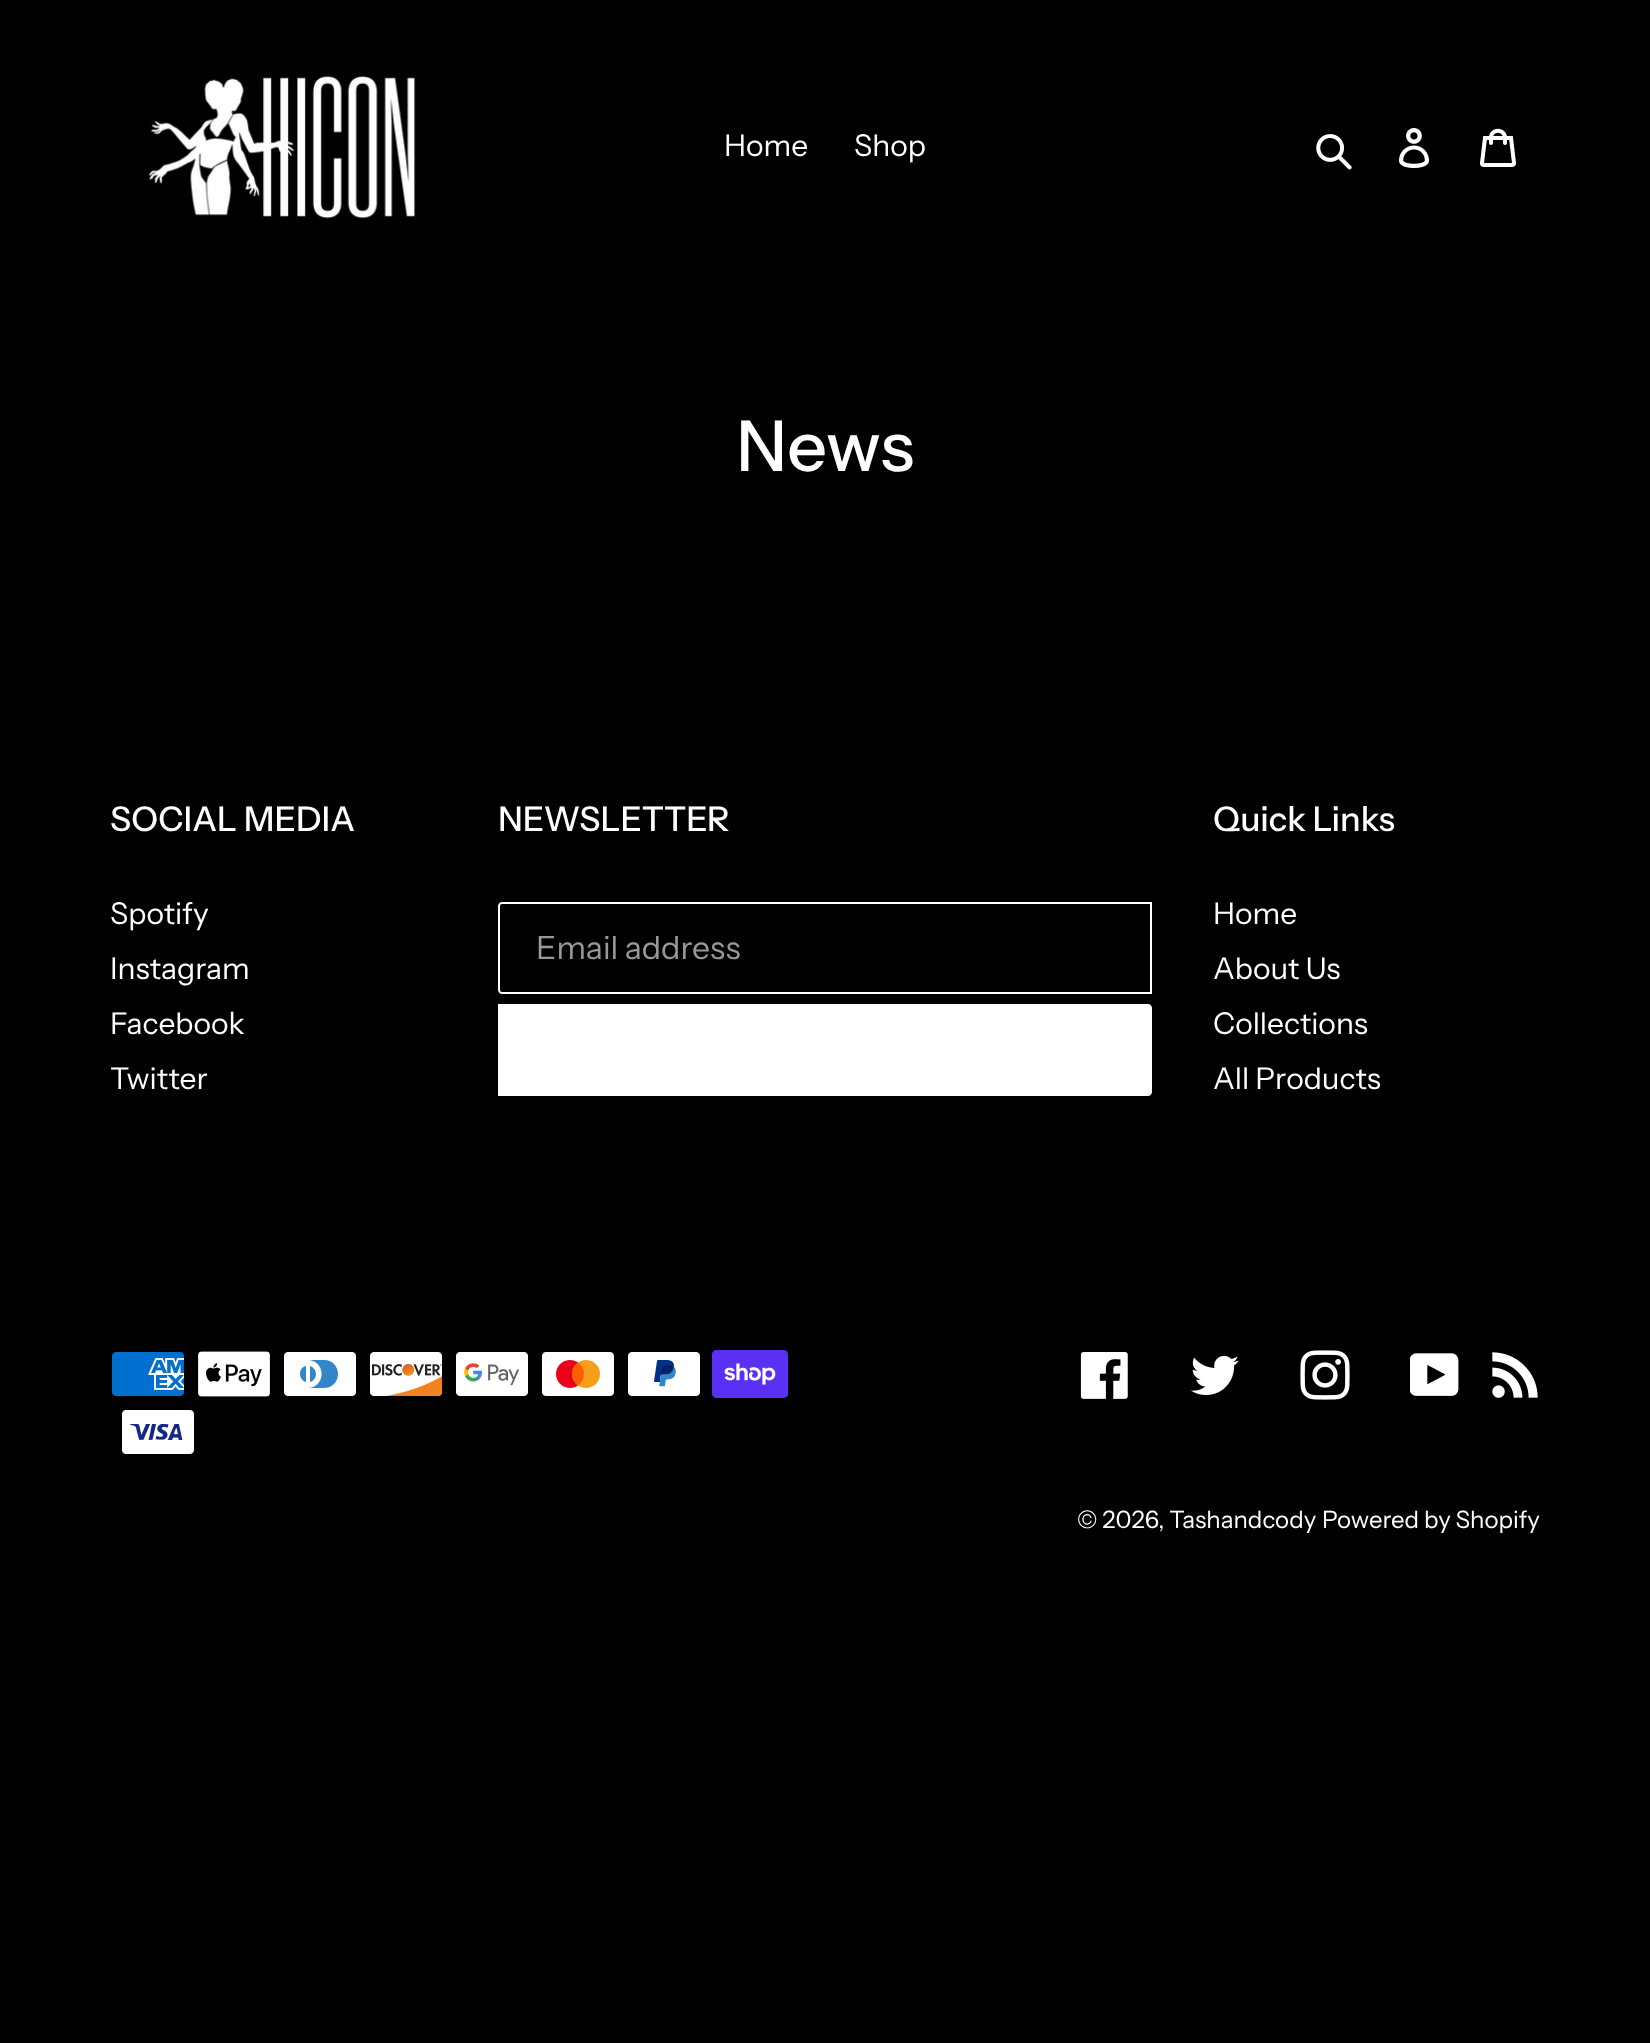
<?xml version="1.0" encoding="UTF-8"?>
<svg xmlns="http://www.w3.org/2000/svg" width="1650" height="2043">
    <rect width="100%" height="100%" fill="#000000"/>
    <image x="148" y="75" width="268" height="144" href="img_01.png"/>
    <text x="724" y="156" font-family="Instrument Sans" font-size="30" fill="#FFFFFF">Home</text>
    <text x="854" y="156" font-family="Instrument Sans" font-size="30" fill="#FFFFFF">Shop</text>
    <image x="1316" y="134" width="36" height="36" href="img_02.png"/>
    <image x="1399" y="128" width="31" height="40" href="img_03.png"/>
    <image x="1480" y="128" width="36" height="39" href="img_04.png"/>
    <text x="736" y="471" font-family="Instrument Sans" font-size="70" font-weight="500" fill="#FFFFFF">News</text>
    <text x="110" y="831" font-family="Instrument Sans" font-size="34" font-weight="500" fill="#FFFFFF">SOCIAL MEDIA</text>
    <text font-family="Instrument Sans" font-size="30" fill="#FFFFFF">
        <tspan x="110" y="924">Spotify</tspan>
        <tspan x="110" y="979">Instagram</tspan>
        <tspan x="110" y="1034">Facebook</tspan>
        <tspan x="110" y="1089">Twitter</tspan>
    </text>
    <text x="498" y="831" font-family="Instrument Sans" font-size="34" font-weight="500" fill="#FFFFFF">NEWSLETTER</text>
    <path d="M 502 903 H 1151 V 993 H 502 C 500.5 993 499 991.5 499 990 V 906 C 499 904.5 500.5 903 502 903 Z" fill="none" stroke="#FFFFFF" stroke-width="2"/>
    <text x="536" y="959" font-family="Instrument Sans" font-size="32" fill="#999999">Email address</text>
    <path d="M 498 1004 H 1148 C 1150 1004 1152 1006 1152 1008 V 1092 C 1152 1094 1150 1096 1148 1096 H 498 Z" fill="#FFFFFF"/>
    <text x="1213" y="831" font-family="Instrument Sans" font-size="34" font-weight="500" fill="#FFFFFF">Quick Links</text>
    <text font-family="Instrument Sans" font-size="30" fill="#FFFFFF">
        <tspan x="1213" y="924">Home</tspan>
        <tspan x="1213" y="979">About Us</tspan>
        <tspan x="1213" y="1034">Collections</tspan>
        <tspan x="1213" y="1089">All Products</tspan>
    </text>
    <image x="112" y="1352" width="72" height="44" href="img_05.png"/>
    <image x="198" y="1351" width="72" height="46" href="img_06.png"/>
    <image x="284" y="1352" width="72" height="44" href="img_07.png"/>
    <image x="370" y="1352" width="73" height="44" href="img_08.png"/>
    <image x="456" y="1352" width="72" height="44" href="img_09.png"/>
    <image x="542" y="1352" width="72" height="44" href="img_10.png"/>
    <image x="628" y="1352" width="72" height="44" href="img_11.png"/>
    <image x="712" y="1350" width="76" height="48" href="img_12.png"/>
    <image x="122" y="1410" width="72" height="44" href="img_13.png"/>
    <image x="1080" y="1352" width="48" height="47" href="img_14.png"/>
    <image x="1191" y="1355" width="48" height="40" href="img_15.png"/>
    <image x="1300" y="1350" width="50" height="50" href="img_16.png"/>
    <image x="1410" y="1353" width="49" height="43" href="img_17.png"/>
    <image x="1492" y="1352" width="46" height="46" href="img_18.png"/>
    <text x="1077" y="1528" font-family="Instrument Sans" font-size="24" fill="#FFFFFF">© 2026, Tashandcody</text>
    <text x="1322" y="1528" font-family="Instrument Sans" font-size="24" fill="#FFFFFF">Powered by Shopify</text>
</svg>
